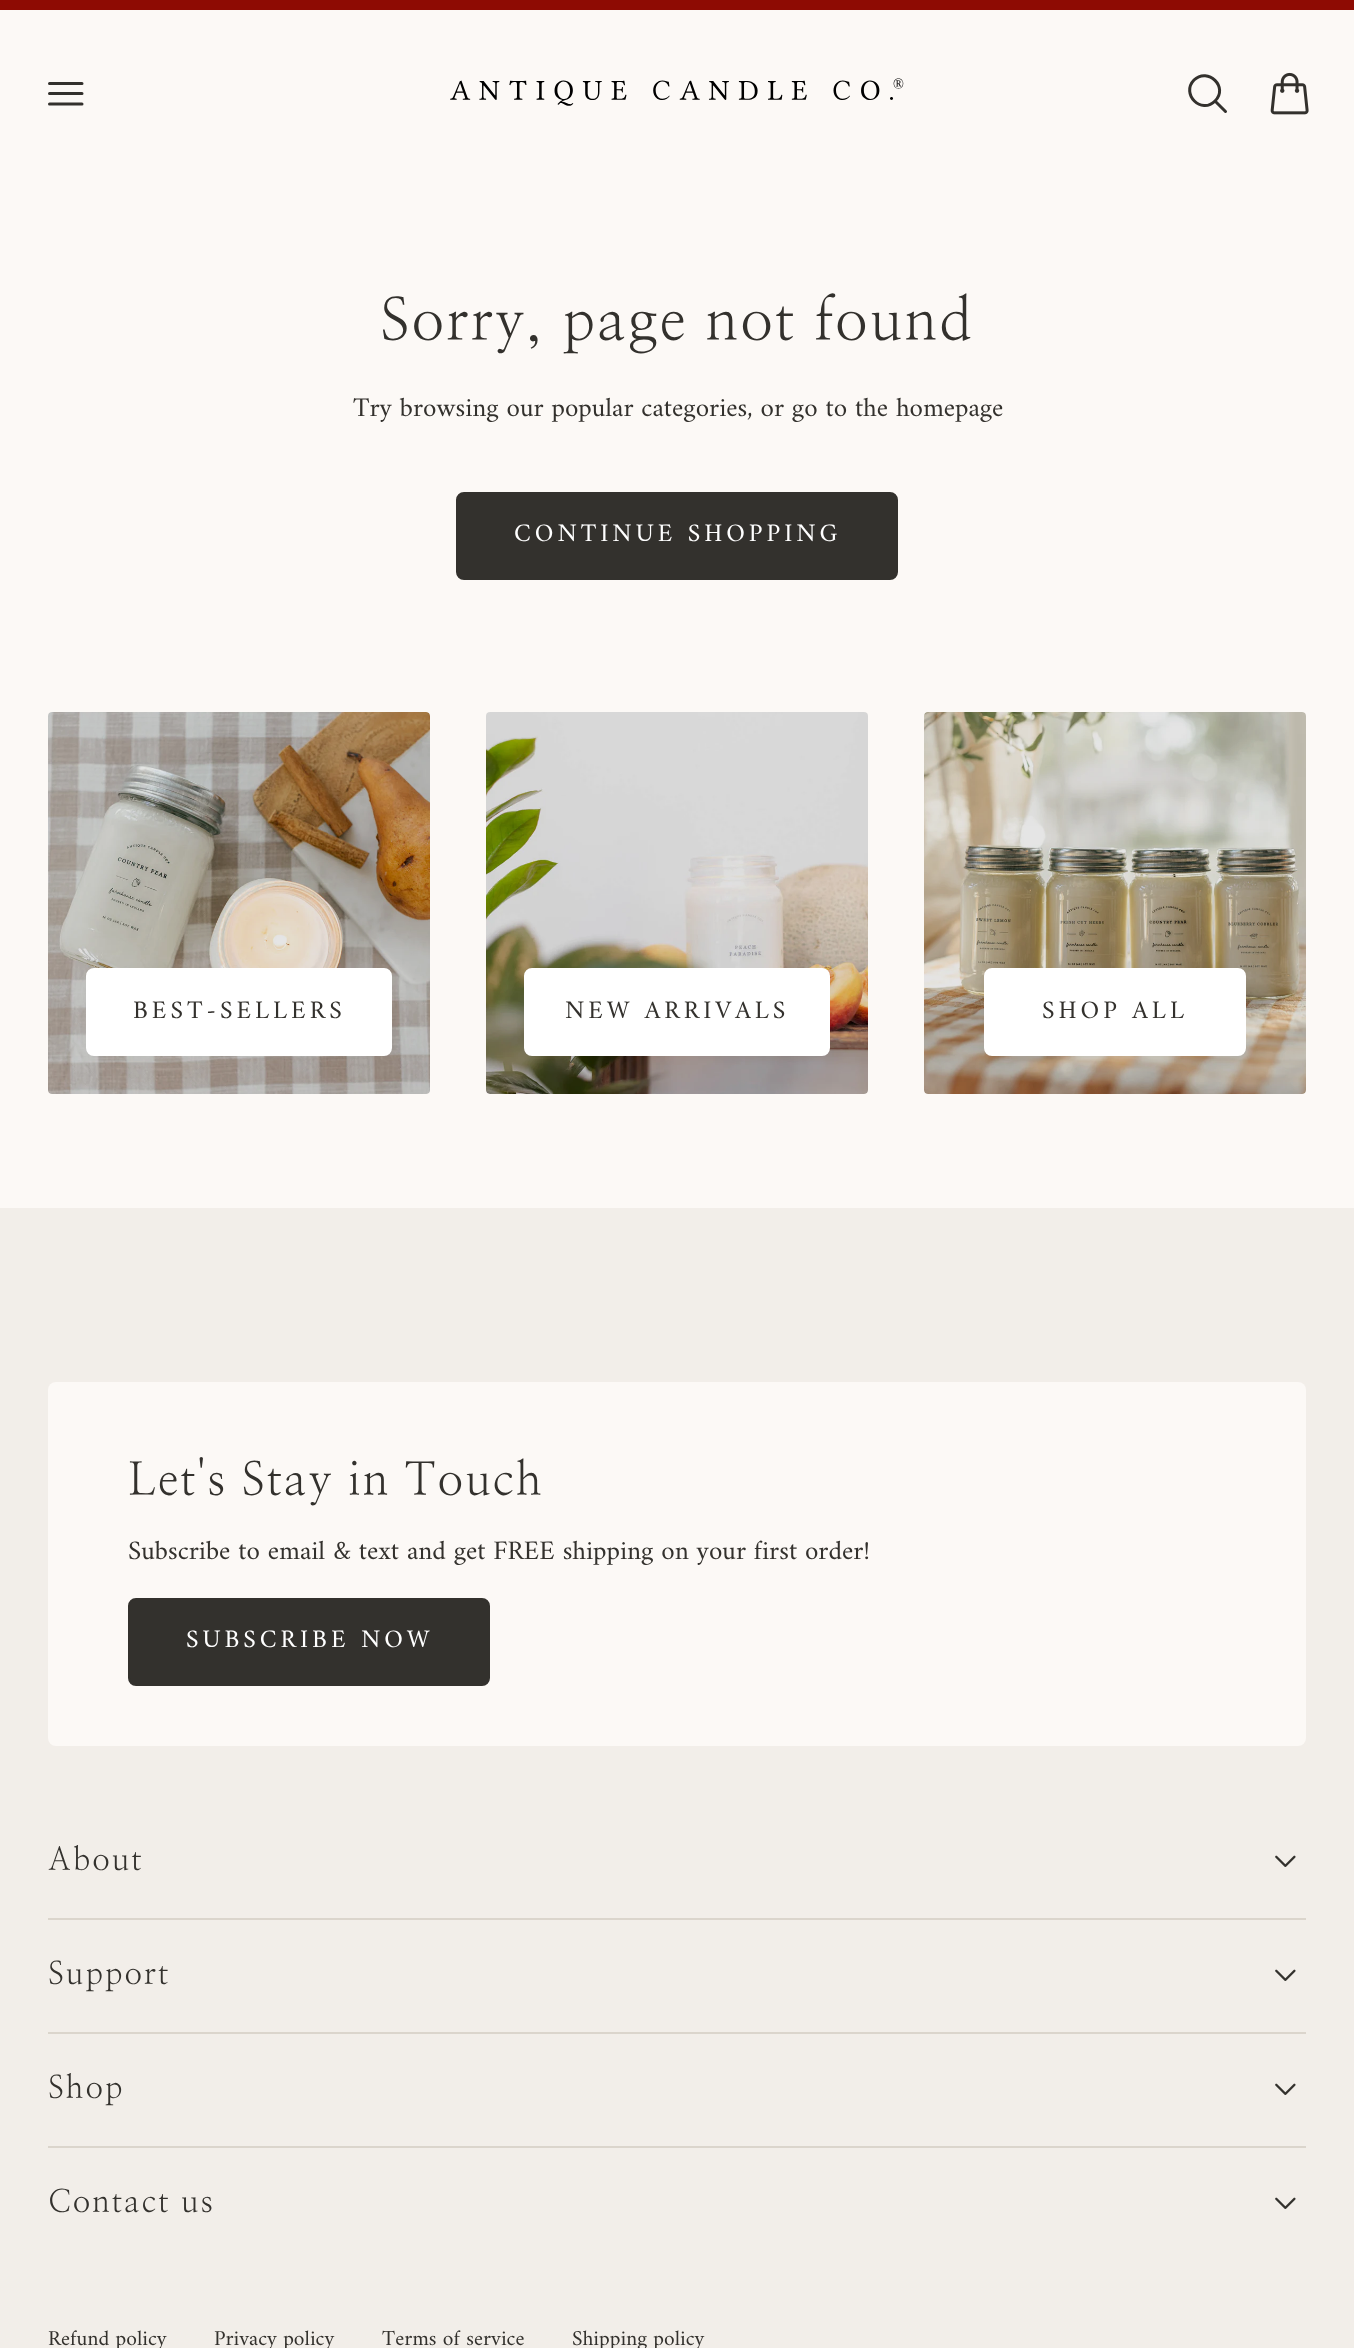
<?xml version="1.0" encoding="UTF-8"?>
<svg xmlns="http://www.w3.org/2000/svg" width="1354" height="2348">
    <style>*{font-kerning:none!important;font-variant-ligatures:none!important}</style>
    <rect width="100%" height="100%" fill="#FCF9F6"/>
    <rect x="0" y="0" width="1354" height="10" fill="#8E0B03"/>
    <path d="M 49.5 83.5 H 82 M 49.5 93.5 H 82 M 49.5 104 H 82" fill="none" stroke="#33312D" stroke-width="3" stroke-linecap="round" stroke-linejoin="round"/>
    <image x="450" y="78" width="454" height="28" href="img_01.png"/>
    <path d="M 1225.5 111.5 L 1215 101 M 1215 101 C 1229 87.5 1208 66.5 1194 80 C 1180.5 94 1201.5 115 1215 101 Z" fill="none" stroke="#33312D" stroke-width="3" stroke-linecap="round" stroke-linejoin="round"/>
    <image x="1270" y="72" width="39" height="43" href="img_02.png"/>
    <text x="380" y="340" font-family="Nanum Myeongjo" font-size="58.25" letter-spacing="2" fill="#33312D">Sorry, page not found</text>
    <text x="353" y="416" font-family="Amiri" font-size="27" fill="#33312D">Try browsing our popular categories, or go to the homepage</text>
    <rect x="457" y="493" width="440" height="86" rx="7" fill="#33312D" stroke="#33312D" stroke-width="2"/>
    <text x="514" y="541" font-family="Amiri" font-size="25.5" letter-spacing="4" fill="#FFFFFF">CONTINUE SHOPPING</text>
    <image x="48" y="712" width="382" height="382" href="img_03.png"/>
    <rect x="48" y="712" width="382" height="382" rx="4" fill="#000000" fill-opacity="0.1"/>
    <rect x="87" y="969" width="304" height="86" rx="7" fill="#FFFFFF" stroke="#FFFFFF" stroke-width="2"/>
    <text x="133" y="1018" font-family="Amiri" font-size="25.5" letter-spacing="4" fill="#33312D">BEST-SELLERS</text>
    <image x="486" y="712" width="382" height="382" href="img_04.png"/>
    <rect x="486" y="712" width="382" height="382" rx="4" fill="#000000" fill-opacity="0.1"/>
    <rect x="525" y="969" width="304" height="86" rx="7" fill="#FFFFFF" stroke="#FFFFFF" stroke-width="2"/>
    <text x="565" y="1018" font-family="Amiri" font-size="25.5" letter-spacing="4" fill="#33312D">NEW ARRIVALS</text>
    <image x="924" y="712" width="382" height="382" href="img_05.png"/>
    <rect x="924" y="712" width="382" height="382" rx="4" fill="#000000" fill-opacity="0.1"/>
    <rect x="985" y="969" width="260" height="86" rx="7" fill="#FFFFFF" stroke="#FFFFFF" stroke-width="2"/>
    <text x="1042" y="1018" font-family="Amiri" font-size="25.5" letter-spacing="4" fill="#33312D">SHOP ALL</text>
    <rect x="0" y="1208" width="1354" height="1140" fill="#F2EEE9"/>
    <rect x="48" y="1382" width="1258" height="364" rx="8" fill="#FCF9F6"/>
    <text x="128" y="1495" font-family="Nanum Myeongjo" font-size="45.75" letter-spacing="2" fill="#33312D">Let's Stay in Touch</text>
    <text x="128" y="1559" font-family="Amiri" font-size="27" fill="#33312D">Subscribe to email &amp; text and get FREE shipping on your first order!</text>
    <rect x="129" y="1599" width="360" height="86" rx="7" fill="#33312D" stroke="#33312D" stroke-width="2"/>
    <text x="186" y="1647" font-family="Amiri" font-size="25.5" letter-spacing="4" fill="#FFFFFF">SUBSCRIBE NOW</text>
    <rect x="48" y="1918" width="1258" height="2" fill="#DBD5CC"/>
    <text x="48" y="1870" font-family="Nanum Myeongjo" font-size="31.25" letter-spacing="2" fill="#33312D">About</text>
    <image x="1275" y="1855" width="21" height="12" href="img_06.png"/>
    <rect x="48" y="2032" width="1258" height="2" fill="#DBD5CC"/>
    <text x="48" y="1984" font-family="Nanum Myeongjo" font-size="31.25" letter-spacing="2" fill="#33312D">Support</text>
    <image x="1275" y="1969" width="21" height="12" href="img_06.png"/>
    <rect x="48" y="2146" width="1258" height="2" fill="#DBD5CC"/>
    <text x="48" y="2098" font-family="Nanum Myeongjo" font-size="31.25" letter-spacing="2" fill="#33312D">Shop</text>
    <image x="1275" y="2083" width="21" height="12" href="img_06.png"/>
    <text x="48" y="2212" font-family="Nanum Myeongjo" font-size="31.25" letter-spacing="2" fill="#33312D">Contact us</text>
    <image x="1275" y="2197" width="21" height="12" href="img_06.png"/>
    <text x="48" y="2345" font-family="Amiri" font-size="21.5" fill="#33312D">Refund policy</text>
    <text x="214" y="2345" font-family="Amiri" font-size="21.5" fill="#33312D">Privacy policy</text>
    <text x="382" y="2345" font-family="Amiri" font-size="21.5" fill="#33312D">Terms of service</text>
    <text x="572" y="2345" font-family="Amiri" font-size="21.5" fill="#33312D">Shipping policy</text>
</svg>
